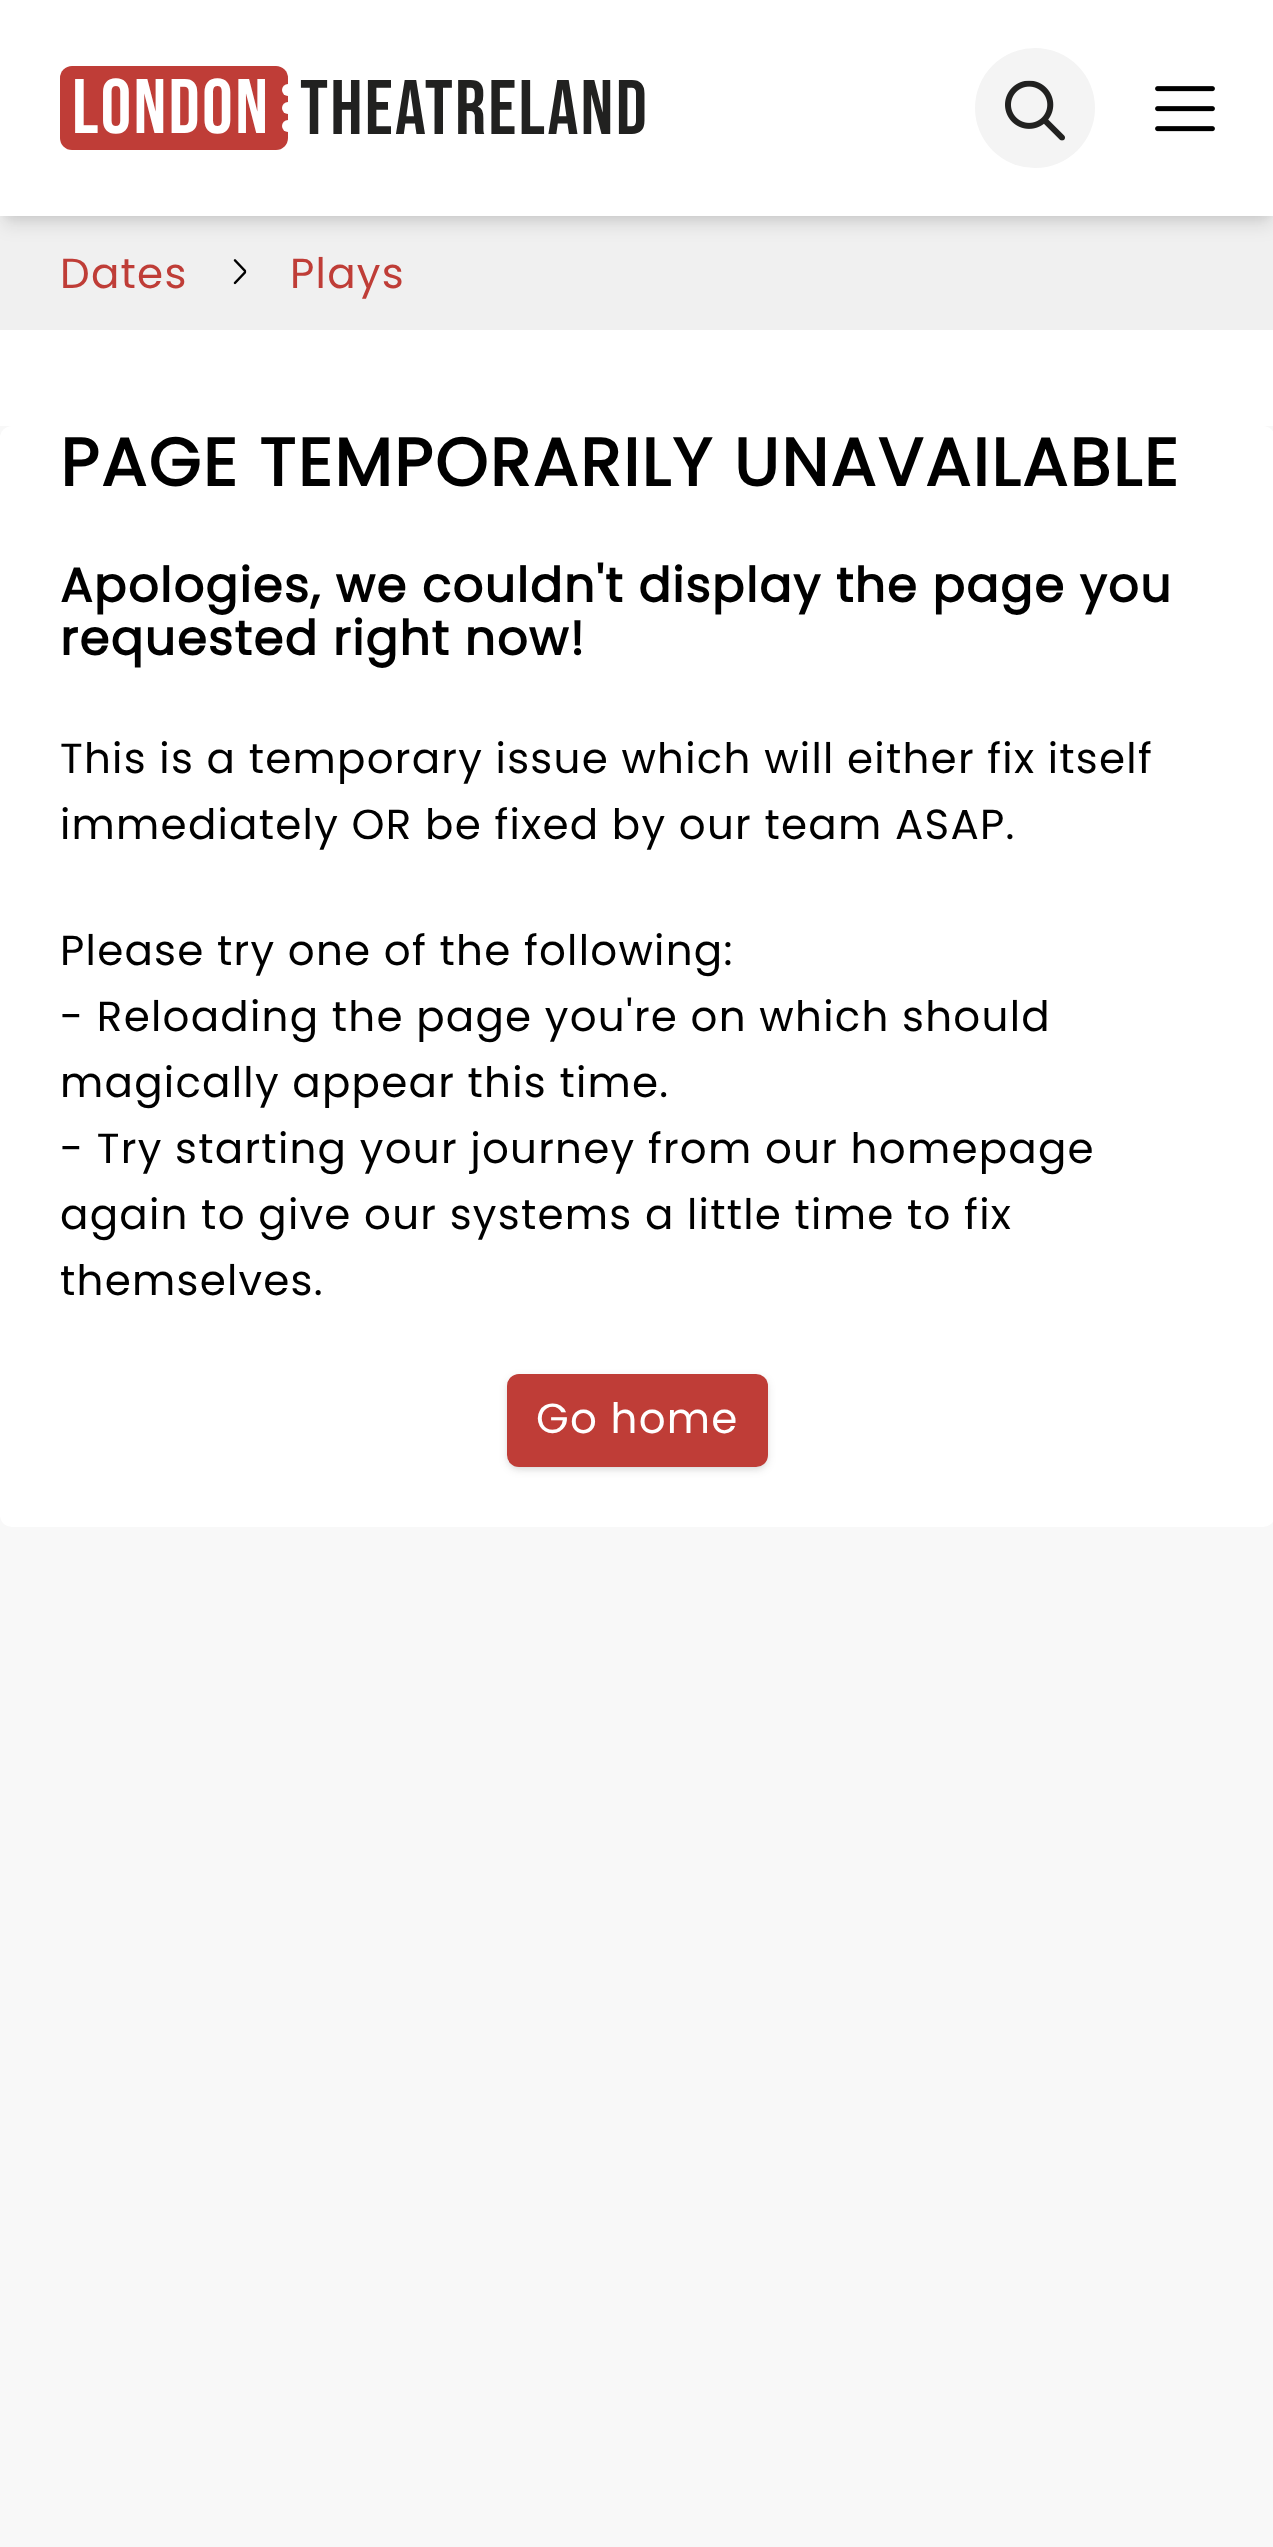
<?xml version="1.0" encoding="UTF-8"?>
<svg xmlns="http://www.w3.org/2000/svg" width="1273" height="2547">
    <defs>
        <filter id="blur1" x="-50%" y="-200%" width="200%" height="500%"><feGaussianBlur stdDeviation="6"/></filter>
        <filter id="blur2" x="-50%" y="-200%" width="200%" height="500%"><feGaussianBlur stdDeviation="9"/></filter>
        <filter id="blur3" x="-50%" y="-200%" width="200%" height="500%"><feGaussianBlur stdDeviation="3"/></filter>
        <filter id="blur4" x="-50%" y="-200%" width="200%" height="500%"><feGaussianBlur stdDeviation="4.5"/></filter>
    </defs>
    <rect width="100%" height="100%" fill="#F8F8F8"/>
    <rect x="0" y="216" width="1273" height="114" fill="#F0F0F0"/>
    <rect x="6" y="12" width="1263" height="204" fill="#000000" fill-opacity="0.1" filter="url(#blur1)"/>
    <rect x="3" y="15" width="1269" height="210" fill="#000000" fill-opacity="0.1" filter="url(#blur2)"/>
    <rect x="0" y="0" width="1273" height="216" fill="#FFFFFF"/>
    <rect x="60" y="66" width="228" height="84" rx="12" fill="#BF3D37"/>
    <text x="72" y="133" font-family="Bebas Neue" font-size="77" letter-spacing="2.25" fill="#FFFFFF">London</text>
    <circle cx="288" cy="90" r="6" fill="#FFFFFF"/>
    <circle cx="288" cy="108" r="6" fill="#FFFFFF"/>
    <circle cx="288" cy="126" r="6" fill="#FFFFFF"/>
    <text x="300" y="134" font-family="Bebas Neue" font-size="77" letter-spacing="2.25" fill="#212120">Theatreland</text>
    <circle cx="1035" cy="108" r="60" fill="#F4F4F4"/>
    <image x="1005" y="80" width="60" height="61" href="img_01.png"/>
    <image x="1155" y="86" width="60" height="46" href="img_02.png"/>
    <text x="60" y="288" font-family="Poppins" font-size="42" letter-spacing="1.25" fill="#BF3D37">Dates</text>
    <image x="233" y="259" width="14" height="26" href="img_03.png"/>
    <text x="290" y="288" font-family="Poppins" font-size="42" letter-spacing="1.25" fill="#BF3D37">Plays</text>
    <rect x="0" y="330" width="1273" height="96" fill="#FFFFFF"/>
    <rect x="0" y="426" width="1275" height="1101" rx="12" fill="#FFFFFF"/>
    <text x="60" y="486" font-family="Poppins" font-size="67.25" font-weight="700" letter-spacing="2" fill="#000000">PAGE TEMPORARILY UNAVAILABLE</text>
    <text font-family="Poppins" font-size="48" font-weight="700" letter-spacing="1.45" fill="#000000">
        <tspan x="60" y="602">Apologies, we couldn't display the page you</tspan>
        <tspan x="60" y="655">requested right now!</tspan>
    </text>
    <text font-family="Poppins" font-size="42" letter-spacing="1.25" fill="#000000">
        <tspan x="60" y="773">This is a temporary issue which will either fix itself</tspan>
        <tspan x="60" y="839">immediately OR be fixed by our team ASAP.</tspan>
    </text>
    <text font-family="Poppins" font-size="42" letter-spacing="1.25" fill="#000000">
        <tspan x="60" y="965">Please try one of the following:</tspan>
        <tspan x="60" y="1031">- Reloading the page you're on which should</tspan>
        <tspan x="60" y="1097">magically appear this time.</tspan>
        <tspan x="60" y="1163">- Try starting your journey from our homepage</tspan>
        <tspan x="60" y="1229">again to give our systems a little time to fix</tspan>
        <tspan x="60" y="1295">themselves.</tspan>
    </text>
    <rect x="510" y="1380" width="255" height="87" rx="9" fill="#000000" fill-opacity="0.1" filter="url(#blur3)"/>
    <rect x="507" y="1377" width="261" height="93" rx="12" fill="#000000" fill-opacity="0.1" filter="url(#blur4)"/>
    <rect x="507" y="1374" width="261" height="93" rx="12" fill="#BF3D37"/>
    <text x="536" y="1433" font-family="Poppins" font-size="42" letter-spacing="1.25" fill="#FFFFFF">Go home</text>
</svg>
